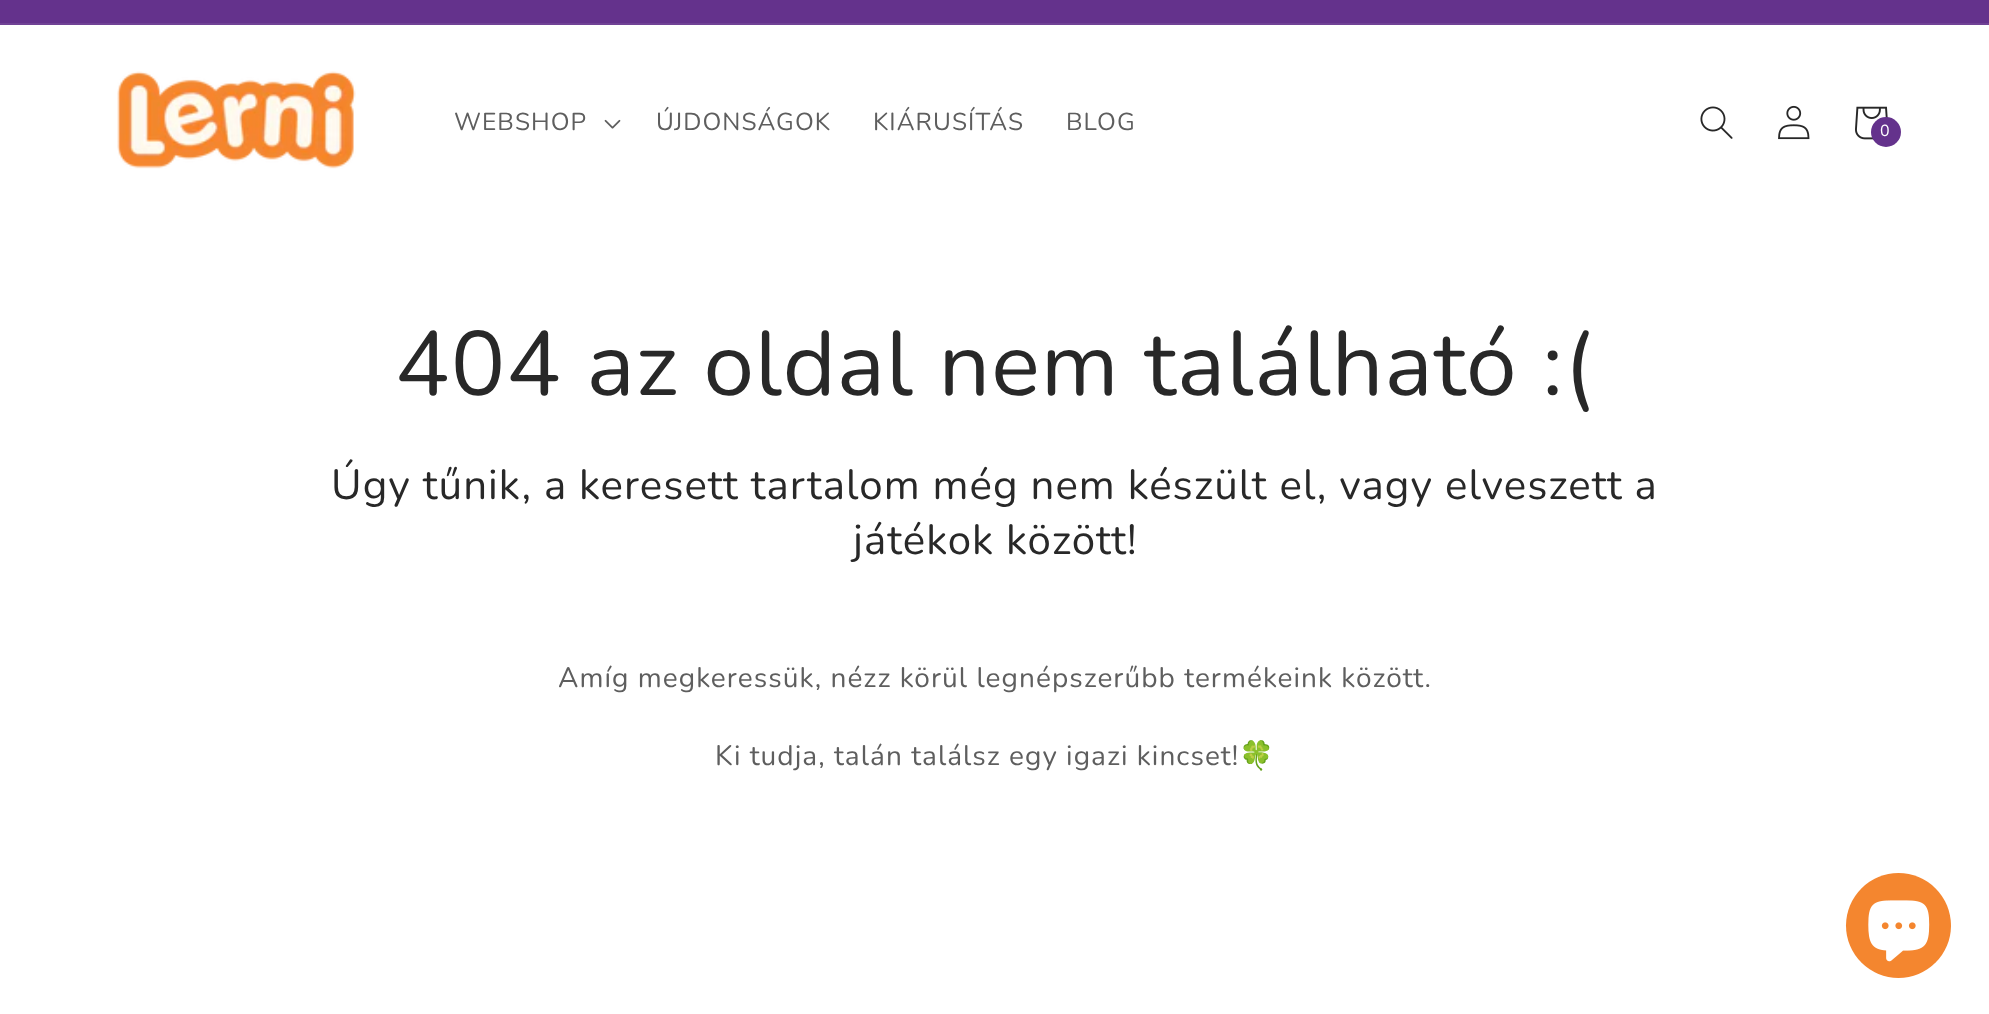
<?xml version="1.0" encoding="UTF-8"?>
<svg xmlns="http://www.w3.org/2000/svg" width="1989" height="1014">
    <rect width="100%" height="100%" fill="#FFFFFF"/>
    <rect x="0" y="0" width="1989" height="23" fill="#64328C"/>
    <rect x="0" y="23" width="1989" height="2" fill="#704295"/>
    <image x="117" y="71" width="239" height="98" href="img_01.png"/>
    <text x="454" y="130" font-family="Nunito" font-size="24.5" letter-spacing="1.05" fill="#5E5E5E">WEBSHOP</text>
    <image x="604" y="119" width="17" height="10" href="img_02.png"/>
    <text x="656" y="130" font-family="Nunito" font-size="24.5" letter-spacing="1.05" fill="#5E5E5E">ÚJDONSÁGOK</text>
    <text x="873" y="130" font-family="Nunito" font-size="24.5" letter-spacing="1.05" fill="#5E5E5E">KIÁRUSÍTÁS</text>
    <text x="1066" y="130" font-family="Nunito" font-size="24.5" letter-spacing="1.05" fill="#5E5E5E">BLOG</text>
    <image x="1700" y="106" width="33" height="33" href="img_03.png"/>
    <image x="1778" y="105" width="32" height="35" href="img_04.png"/>
    <image x="1855" y="106" width="33" height="34" href="img_05.png"/>
    <circle cx="1886" cy="132" r="15" fill="#64328C"/>
    <text x="1880" y="136" font-family="Nunito" font-size="16" letter-spacing="1.05" fill="#FFFFFF">0</text>
    <text x="395" y="395" font-family="Nunito" font-size="91" letter-spacing="1.05" fill="#282828">404 az oldal nem található :(</text>
    <text x="331" y="499" font-family="Nunito" font-size="42" letter-spacing="1.05" fill="#282828">Úgy tűnik, a keresett tartalom még nem készült el, vagy elveszett a</text>
    <text x="853" y="554" font-family="Nunito" font-size="42" letter-spacing="1.05" fill="#282828">játékok között!</text>
    <text x="558" y="687" font-family="Nunito" font-size="28" letter-spacing="1.05" fill="#5E5E5E">Amíg megkeressük, nézz körül legnépszerűbb termékeink között.</text>
    <text x="715" y="765" font-family="Nunito" font-size="28" letter-spacing="1.05" fill="#5E5E5E">Ki tudja, talán találsz egy igazi kincset!</text>
    <text x="1239" y="765" font-family="Noto Color Emoji" font-size="28" letter-spacing="1.05" fill="#5E5E5E">🍀</text>
    <circle cx="1898.5" cy="925.5" r="52.5" fill="#F4862F"/>
    <image x="1868" y="900" width="62" height="62" href="img_06.png"/>
</svg>
